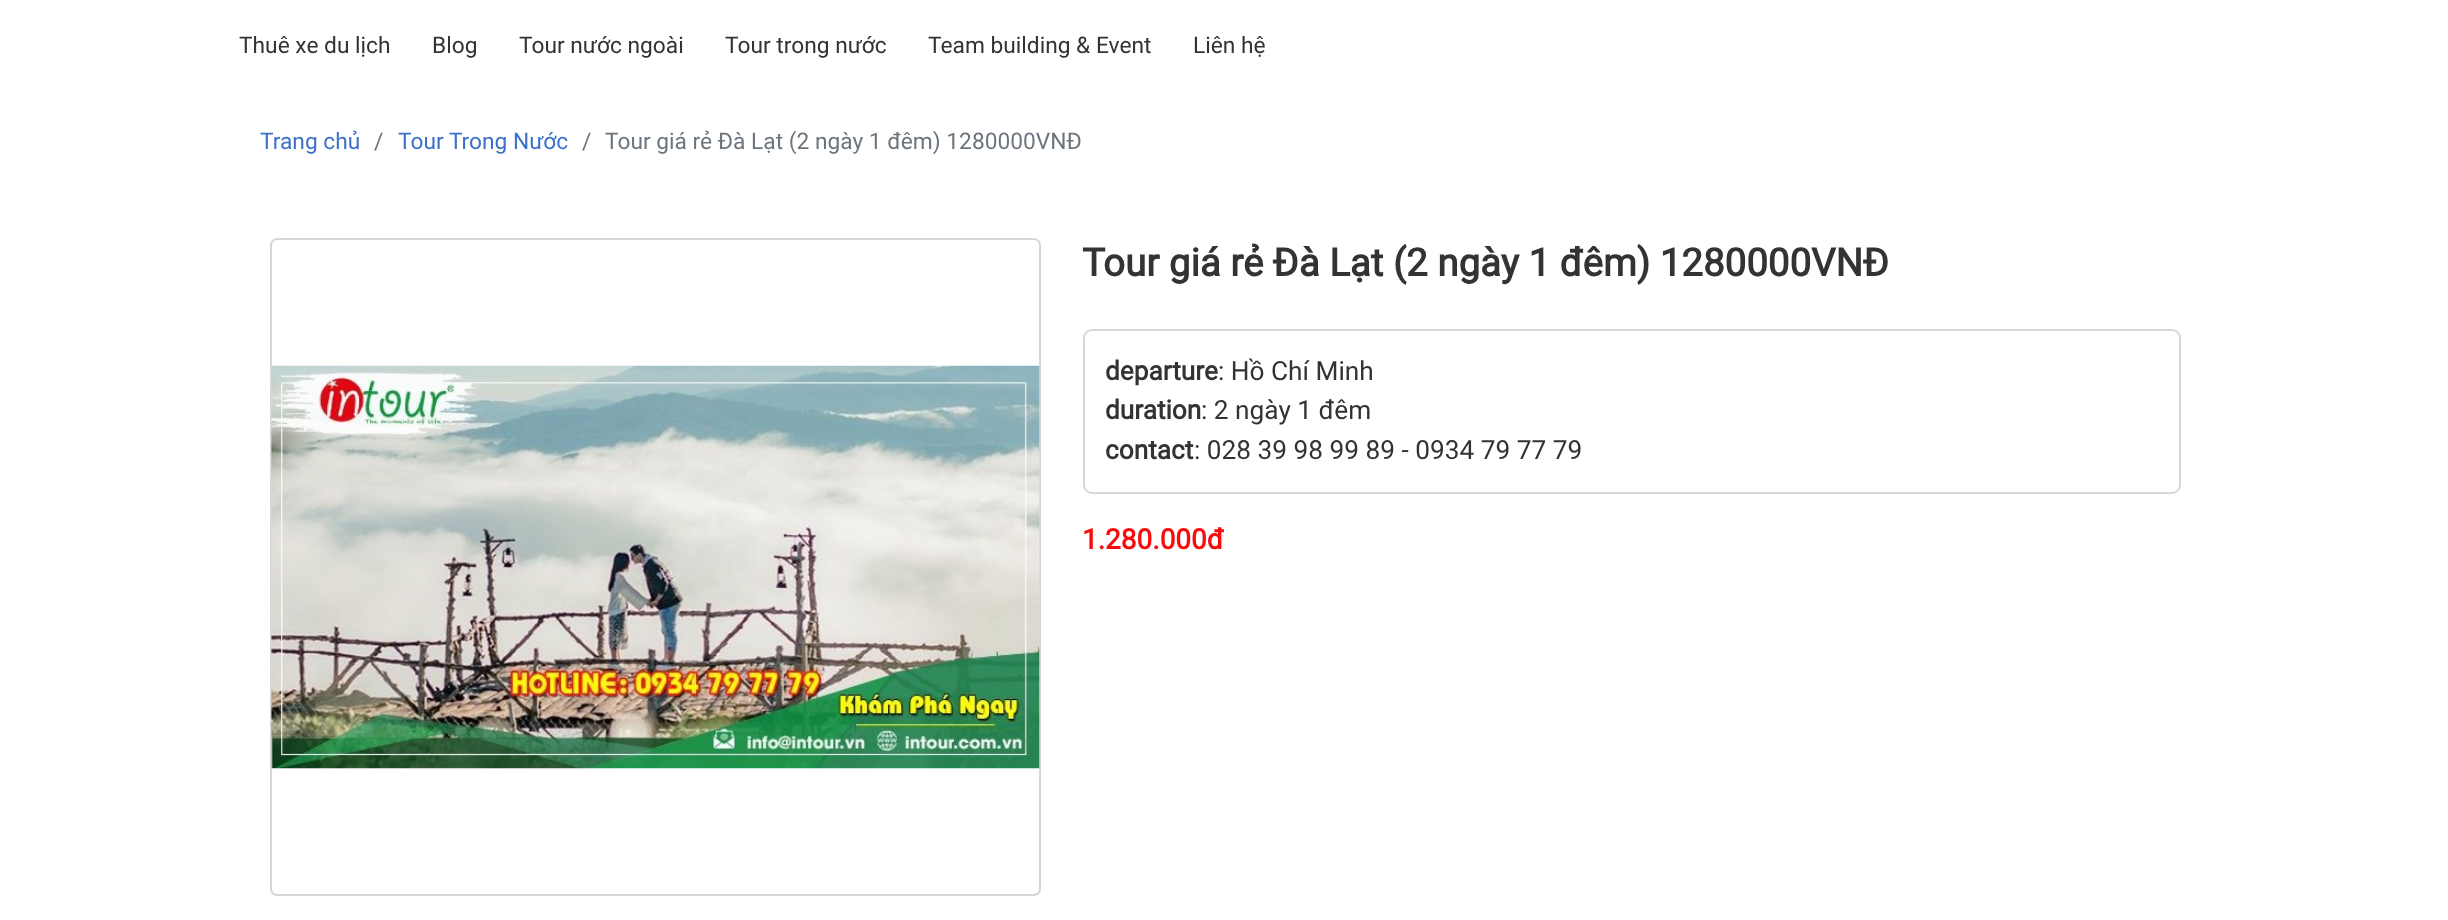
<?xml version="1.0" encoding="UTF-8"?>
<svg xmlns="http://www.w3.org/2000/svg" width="2448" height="920">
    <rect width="100%" height="100%" fill="#FFFFFF"/>
    <text x="239" y="53" font-family="Roboto" font-size="22.75" fill="#333333">Thuê xe du lịch</text>
    <text x="432" y="53" font-family="Roboto" font-size="22.75" fill="#333333">Blog</text>
    <text x="519" y="53" font-family="Roboto" font-size="22.75" fill="#333333">Tour nước ngoài</text>
    <text x="725" y="53" font-family="Roboto" font-size="22.75" fill="#333333">Tour trong nước</text>
    <text x="928" y="53" font-family="Roboto" font-size="22.75" fill="#333333">Team building &amp; Event</text>
    <text x="1193" y="53" font-family="Roboto" font-size="22.75" fill="#333333">Liên hệ</text>
    <text x="260" y="149" font-family="Roboto" font-size="22.75" fill="#3B71CA">Trang chủ</text>
    <text x="374" y="149" font-family="Roboto" font-size="22.75" fill="#6C757D">/</text>
    <text x="398" y="149" font-family="Roboto" font-size="22.75" fill="#3B71CA">Tour Trong Nước</text>
    <text x="582" y="149" font-family="Roboto" font-size="22.75" fill="#6C757D">/</text>
    <text x="605" y="149" font-family="Roboto" font-size="22.75" fill="#6C757D">Tour giá rẻ Đà Lạt (2 ngày 1 đêm) 1280000VNĐ</text>
    <rect x="271" y="239" width="769" height="656" rx="6" fill="none" stroke="#D7D7D7" stroke-width="2"/>
    <image x="271" y="365" width="769" height="404" href="img_01.png"/>
    <text x="1082" y="276" font-family="Roboto" font-size="38.5" font-weight="700" fill="#333333">Tour giá rẻ Đà Lạt (2 ngày 1 đêm) 1280000VNĐ</text>
    <rect x="1084" y="330" width="1096" height="163" rx="8" fill="none" stroke="#D7D7D7" stroke-width="2"/>
    <text x="1105" y="380" font-family="Roboto" font-size="26.25" font-weight="700" fill="#333333">departure</text>
    <text x="1218" y="380" font-family="Roboto" font-size="26.25" fill="#333333">: Hồ Chí Minh</text>
    <text x="1105" y="419" font-family="Roboto" font-size="26.25" font-weight="700" fill="#333333">duration</text>
    <text x="1201" y="419" font-family="Roboto" font-size="26.25" fill="#333333">: 2 ngày 1 đêm</text>
    <text x="1105" y="459" font-family="Roboto" font-size="26.25" font-weight="700" fill="#333333">contact</text>
    <text x="1194" y="459" font-family="Roboto" font-size="26.25" fill="#333333">: 028 39 98 99 89 - 0934 79 77 79</text>
    <text x="1082" y="549" font-family="Roboto" font-size="28" font-weight="700" fill="#F80B0B">1.280.000đ</text>
</svg>
